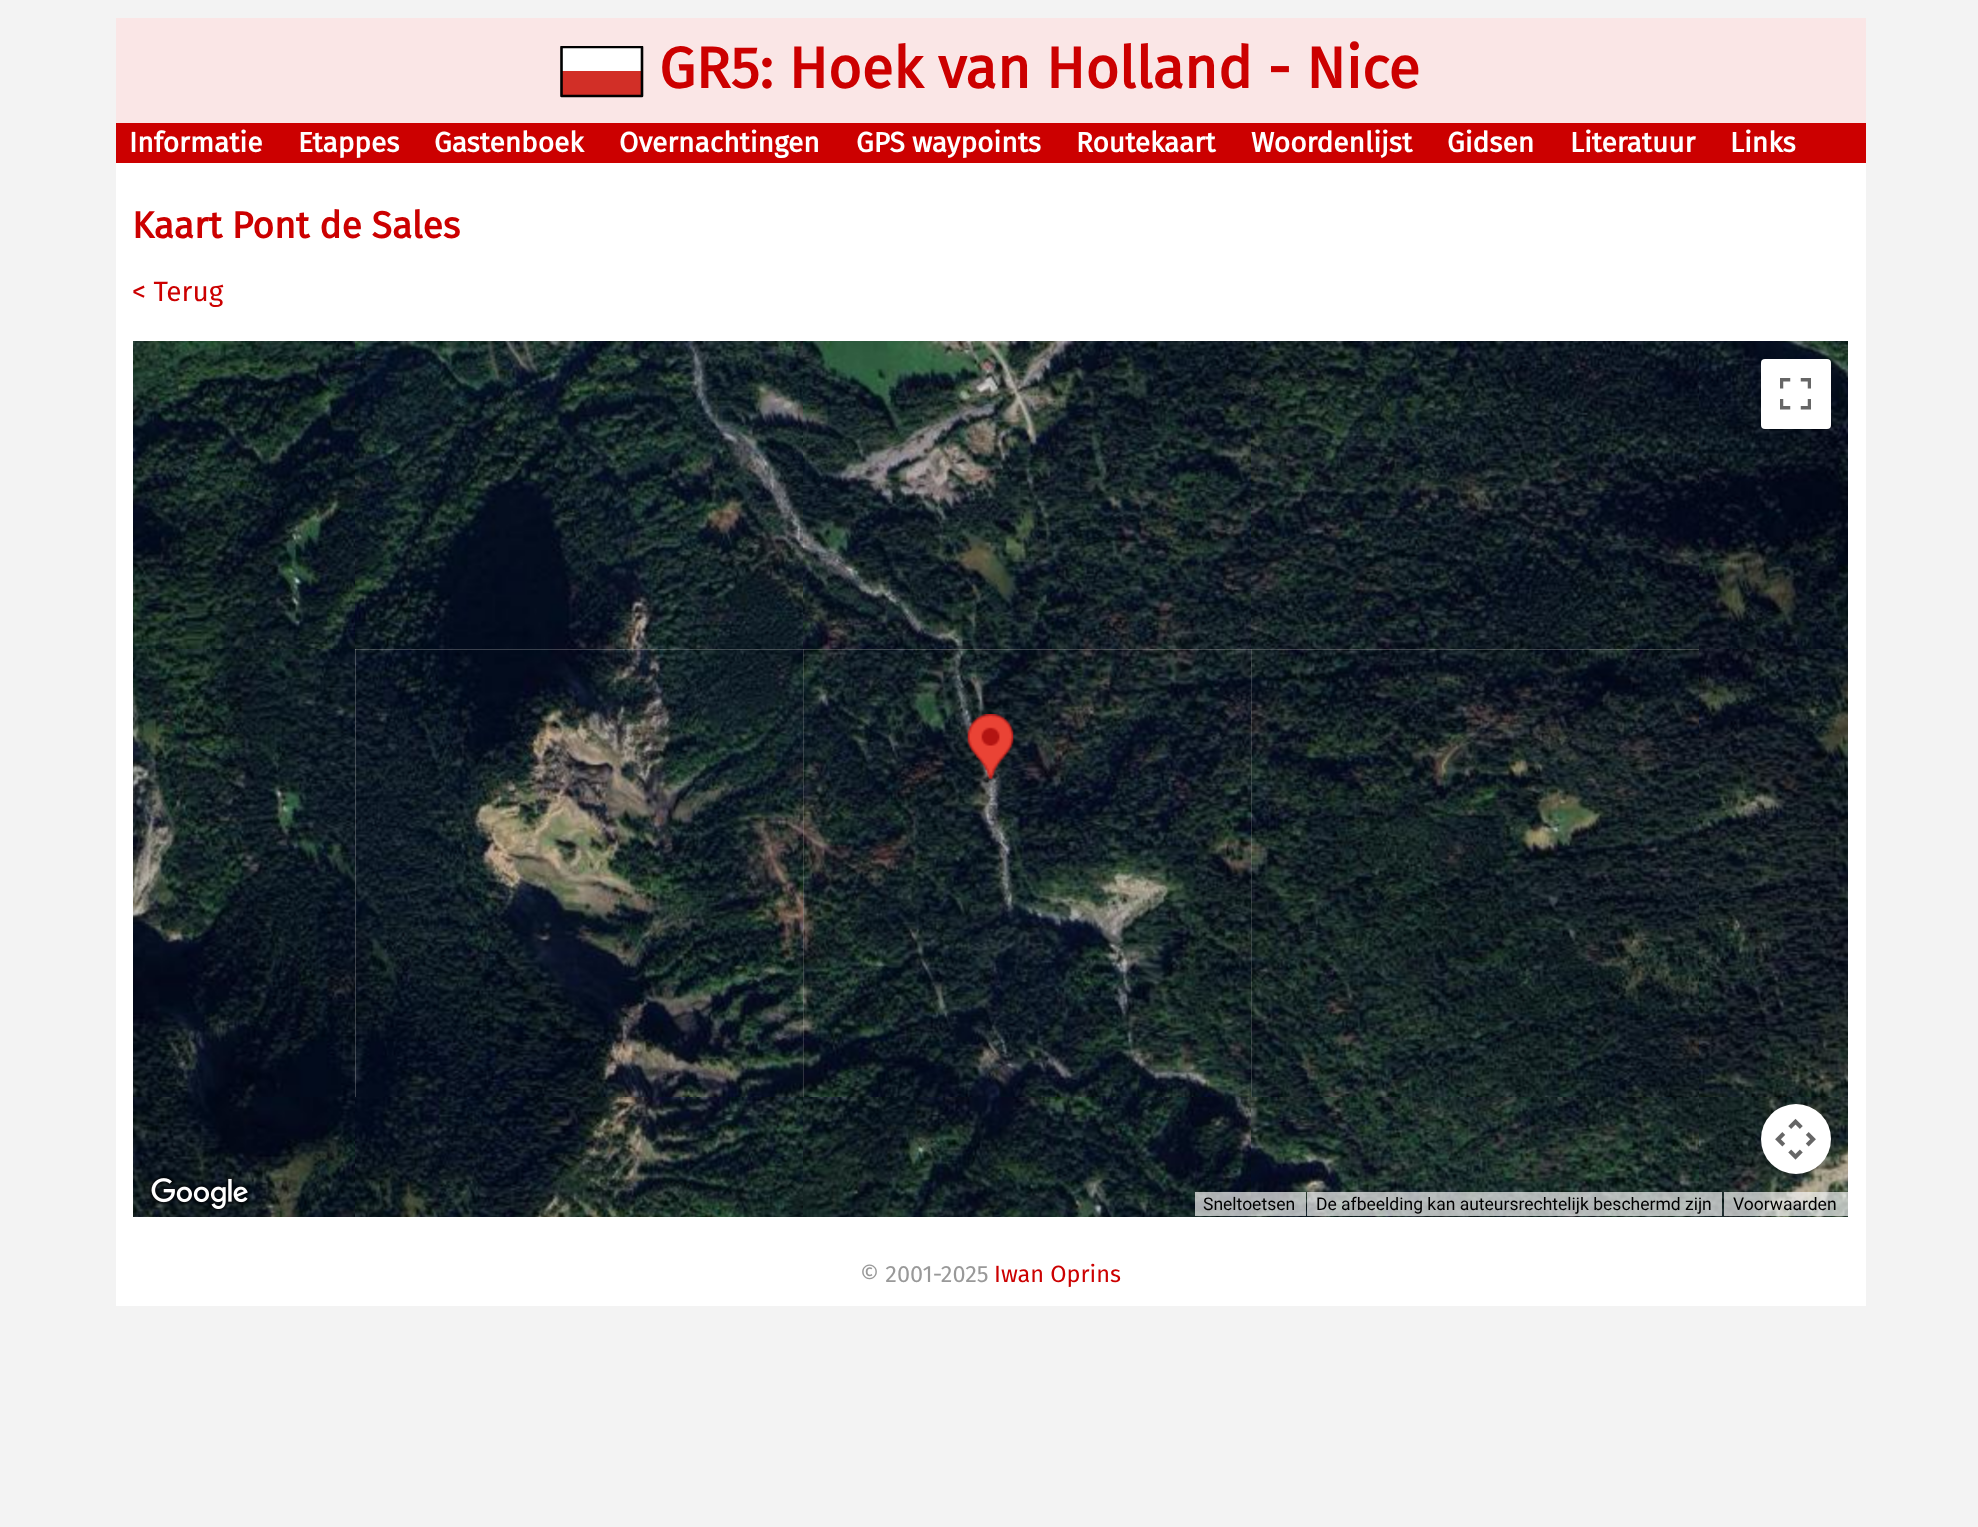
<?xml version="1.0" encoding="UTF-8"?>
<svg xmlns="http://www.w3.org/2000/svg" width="1978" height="1527">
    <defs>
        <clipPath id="clip1"><rect x="560" y="46" width="84" height="52"/></clipPath>
        <filter id="blur1" x="-50%" y="-200%" width="200%" height="500%"><feGaussianBlur stdDeviation="3.5"/></filter>
    </defs>
    <rect width="100%" height="100%" fill="#F3F3F3"/>
    <rect x="116" y="163" width="1750" height="1143" fill="#FFFFFF"/>
    <rect x="116" y="18" width="1750" height="105" fill="#FAE6E6"/>
    <rect x="562" y="48" width="79" height="23" fill="#FFFFFF"/>
    <rect x="562" y="71" width="79" height="24" fill="#D22F27"/>
    <g clip-path="url(#clip1)">
        <path d="M 561.5 47 H 642 V 96 H 561.5 Z" fill="none" stroke="#000000" stroke-width="2.6" stroke-linecap="round" stroke-linejoin="round"/>
    </g>
    <text x="659" y="88" font-family="Fira Sans" font-size="57.75" font-weight="700" fill="#CC0000">GR5: Hoek van Holland - Nice</text>
    <rect x="116" y="123" width="1750" height="40" fill="#CC0000"/>
    <text x="129" y="152" font-family="Fira Sans" font-size="28" font-weight="700" fill="#FFFFFF">Informatie</text>
    <text x="298" y="152" font-family="Fira Sans" font-size="28" font-weight="700" fill="#FFFFFF">Etappes</text>
    <text x="434" y="152" font-family="Fira Sans" font-size="28" font-weight="700" fill="#FFFFFF">Gastenboek</text>
    <text x="619" y="152" font-family="Fira Sans" font-size="28" font-weight="700" fill="#FFFFFF">Overnachtingen</text>
    <text x="856" y="152" font-family="Fira Sans" font-size="28" font-weight="700" fill="#FFFFFF">GPS waypoints</text>
    <text x="1076" y="152" font-family="Fira Sans" font-size="28" font-weight="700" fill="#FFFFFF">Routekaart</text>
    <text x="1251" y="152" font-family="Fira Sans" font-size="28" font-weight="700" fill="#FFFFFF">Woordenlijst</text>
    <text x="1447" y="152" font-family="Fira Sans" font-size="28" font-weight="700" fill="#FFFFFF">Gidsen</text>
    <text x="1570" y="152" font-family="Fira Sans" font-size="28" font-weight="700" fill="#FFFFFF">Literatuur</text>
    <text x="1730" y="152" font-family="Fira Sans" font-size="28" font-weight="700" fill="#FFFFFF">Links</text>
    <text x="132" y="238" font-family="Fira Sans" font-size="37.25" font-weight="700" fill="#CC0000">Kaart Pont de Sales</text>
    <text x="132" y="301" font-family="Fira Sans" font-size="28" fill="#CC0000">&lt; Terug</text>
    <rect x="355" y="649" width="1344" height="448" fill="#E5E3DF"/>
    <image x="133" y="341" width="222" height="308" href="img_01.png"/>
    <image x="355" y="341" width="448" height="308" href="img_02.png"/>
    <image x="803" y="341" width="448" height="308" href="img_03.png"/>
    <image x="1251" y="341" width="448" height="308" href="img_04.png"/>
    <image x="1699" y="341" width="149" height="308" href="img_05.png"/>
    <image x="133" y="649" width="222" height="448" href="img_06.png"/>
    <image x="803" y="649" width="449" height="448" href="img_08.png"/>
    <image x="355" y="649" width="449" height="448" href="img_07.png"/>
    <image x="1251" y="649" width="448" height="448" href="img_09.png"/>
    <image x="1699" y="649" width="149" height="448" href="img_10.png"/>
    <image x="133" y="1097" width="222" height="120" href="img_11.png"/>
    <image x="355" y="1097" width="448" height="120" href="img_12.png"/>
    <image x="803" y="1097" width="448" height="120" href="img_13.png"/>
    <image x="1251" y="1097" width="448" height="120" href="img_14.png"/>
    <image x="1699" y="1097" width="149" height="120" href="img_15.png"/>
    <image x="967" y="714" width="47" height="65" href="img_16.png"/>
    <rect x="1762" y="362" width="67" height="67" rx="2" fill="#000000" fill-opacity="0.3" filter="url(#blur1)"/>
    <rect x="1761" y="359" width="70" height="70" rx="4" fill="#FFFFFF"/>
    <image x="1780" y="378" width="31" height="32" href="img_17.png"/>
    <rect x="1762" y="1108" width="67" height="66" rx="33" fill="#000000" fill-opacity="0.3" filter="url(#blur1)"/>
    <circle cx="1796" cy="1139" r="35" fill="#FFFFFF"/>
    <image x="1775" y="1118" width="41" height="42" href="img_18.png"/>
    <image x="149" y="1176" width="102" height="36" href="img_19.png"/>
    <rect x="1195" y="1192" width="111" height="24" fill="#F5F5F5" fill-opacity="0.7"/>
    <text x="1203" y="1210" font-family="Roboto" font-size="17.5" fill="#000000">Sneltoetsen</text>
    <rect x="1307" y="1192" width="415" height="24" fill="#F5F5F5" fill-opacity="0.7"/>
    <text x="1316" y="1210" font-family="Roboto" font-size="17.5" fill="#000000">De afbeelding kan auteursrechtelijk beschermd zijn</text>
    <rect x="1724" y="1192" width="124" height="24" fill="#F5F5F5" fill-opacity="0.7"/>
    <text x="1733" y="1210" font-family="Roboto" font-size="17.5" fill="#000000">Voorwaarden</text>
    <text x="860" y="1282" font-family="Fira Sans" font-size="23.5" fill="#999999">© 2001-2025</text>
    <text x="994" y="1282" font-family="Fira Sans" font-size="23.5" fill="#CC0000">Iwan Oprins</text>
</svg>
